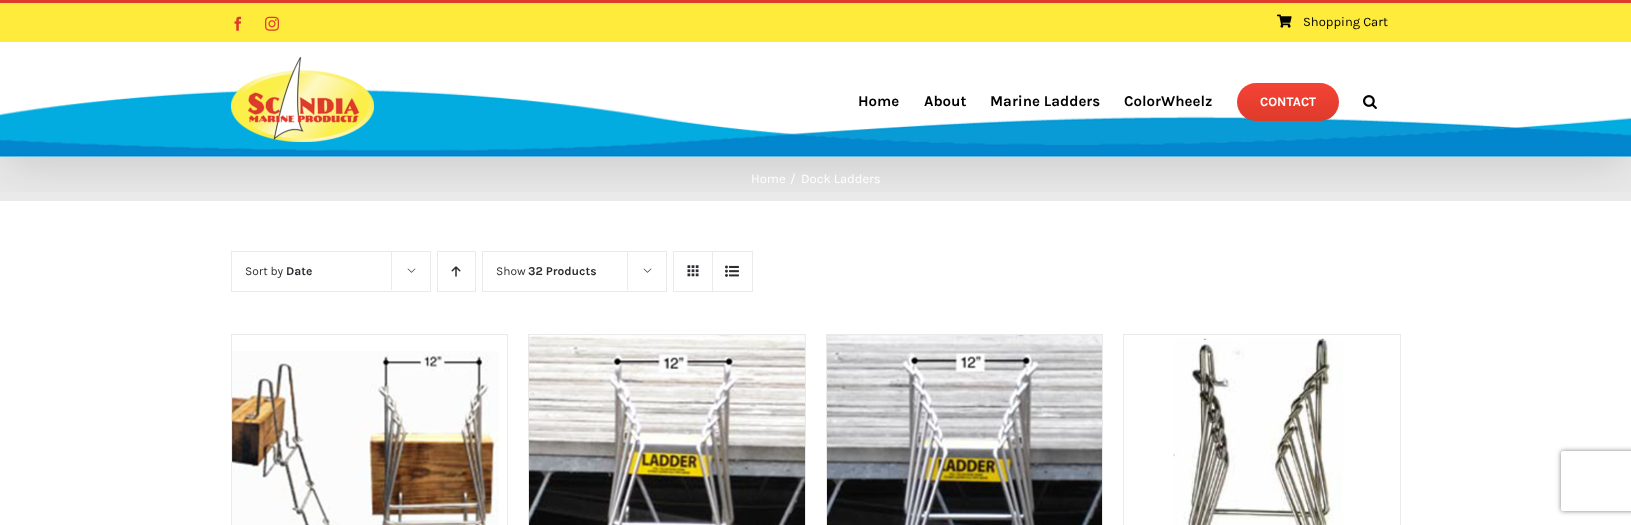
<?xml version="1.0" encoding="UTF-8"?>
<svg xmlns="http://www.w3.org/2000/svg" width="1631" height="525">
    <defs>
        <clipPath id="clip1"><rect x="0" y="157" width="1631" height="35"/></clipPath>
        <filter id="blur1" x="-50%" y="-200%" width="200%" height="500%"><feGaussianBlur stdDeviation="25"/></filter>
        <linearGradient id="g1" gradientUnits="userSpaceOnUse" x1="1288" y1="83" x2="1288" y2="121"><stop offset="0" stop-color="#F44336"/><stop offset="1" stop-color="#DE3B2A"/></linearGradient>
        <clipPath id="clip2"><path d="M 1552 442 H 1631 V 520 H 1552 Z M 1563 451 H 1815 C 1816 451 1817 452 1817 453 V 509 C 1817 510 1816 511 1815 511 H 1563 C 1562 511 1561 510 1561 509 V 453 C 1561 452 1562 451 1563 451 Z" clip-rule="evenodd"/></clipPath>
        <filter id="blur2" x="-50%" y="-200%" width="200%" height="500%"><feGaussianBlur stdDeviation="2.5"/></filter>
    </defs>
    <rect width="100%" height="100%" fill="#FFFFFF"/>
    <rect x="0" y="157" width="1631" height="44" fill="#EAEAEA"/>
    <g clip-path="url(#clip1)">
        <rect x="2" y="12" width="1627" height="153" fill="#000000" fill-opacity="0.14" filter="url(#blur1)"/>
    </g>
    <rect x="0" y="3" width="1631" height="39" fill="#FFEB3B"/>
    <rect x="0" y="0" width="1631" height="3" fill="#DE3B2A"/>
    <image x="234" y="16" width="8" height="15" href="img_01.png"/>
    <image x="265" y="16" width="14" height="15" href="img_02.png"/>
    <image x="1277" y="14" width="15" height="14" href="img_03.png"/>
    <text x="1303" y="26" font-family="Karla" font-size="13" fill="#000000">Shopping Cart</text>
    <image x="0" y="89" width="1631" height="68" href="img_04.png"/>
    <image x="231" y="57" width="143" height="85" href="img_05.png"/>
    <text x="858" y="106" font-family="Karla" font-size="15" font-weight="700" fill="#000000">Home</text>
    <text x="924" y="106" font-family="Karla" font-size="15" font-weight="700" fill="#000000">About</text>
    <text x="990" y="106" font-family="Karla" font-size="15" font-weight="700" fill="#000000">Marine Ladders</text>
    <text x="1124" y="106" font-family="Karla" font-size="15" font-weight="700" fill="#000000">ColorWheelz</text>
    <rect x="1237" y="83" width="102" height="38" rx="19" fill="url(#g1)"/>
    <text x="1260" y="106" font-family="Karla" font-size="13" font-weight="700" fill="#FFFFFF">CONTACT</text>
    <image x="1363" y="95" width="14" height="14" href="img_06.png"/>
    <text x="751" y="183" font-family="Karla" font-size="13" fill="#FFFFFF">Home</text>
    <text x="790" y="183" font-family="Karla" font-size="13" fill="#FFFFFF">/</text>
    <text x="801" y="183" font-family="Karla" font-size="13" fill="#FFFFFF">Dock Ladders</text>
    <rect x="231.5" y="251.5" width="199" height="40" fill="none" stroke="#EAEAEA"/>
    <text x="245" y="275" font-family="Karla" font-size="12" fill="#2B2E32">Sort by</text>
    <text x="286" y="275" font-family="Karla" font-size="12" font-weight="700" fill="#2B2E32">Date</text>
    <rect x="391" y="251" width="1" height="39" fill="#EAEAEA"/>
    <image x="407" y="268" width="9" height="5" href="img_07.png"/>
    <rect x="437.5" y="251.5" width="38" height="40" fill="none" stroke="#EAEAEA"/>
    <image x="451" y="266" width="10" height="11" href="img_08.png"/>
    <rect x="482.5" y="251.5" width="184" height="40" fill="none" stroke="#EAEAEA"/>
    <text x="496" y="275" font-family="Karla" font-size="12" fill="#2B2E32">Show</text>
    <text x="528" y="275" font-family="Karla" font-size="12" font-weight="700" fill="#2B2E32">32 Products</text>
    <rect x="627" y="251" width="1" height="39" fill="#EAEAEA"/>
    <image x="643" y="268" width="9" height="5" href="img_07.png"/>
    <rect x="673.5" y="251.5" width="79" height="40" fill="none" stroke="#EAEAEA"/>
    <rect x="712" y="252" width="1" height="39" fill="#EAEAEA"/>
    <image x="687" y="265" width="12" height="12" href="img_09.png"/>
    <image x="725" y="265" width="14" height="12" href="img_10.png"/>
    <rect x="231" y="334" width="277" height="1" fill="#EAEAEA"/>
    <rect x="507" y="334" width="1" height="191" fill="#EAEAEA"/>
    <rect x="231" y="334" width="1" height="191" fill="#EAEAEA"/>
    <image x="232" y="351" width="267" height="174" href="img_11.png"/>
    <rect x="528" y="334" width="278" height="1" fill="#EAEAEA"/>
    <rect x="805" y="334" width="1" height="191" fill="#EAEAEA"/>
    <rect x="528" y="334" width="1" height="191" fill="#EAEAEA"/>
    <image x="529" y="335" width="276" height="190" href="img_12.png"/>
    <rect x="826" y="334" width="277" height="1" fill="#EAEAEA"/>
    <rect x="1102" y="334" width="1" height="191" fill="#EAEAEA"/>
    <rect x="826" y="334" width="1" height="191" fill="#EAEAEA"/>
    <image x="827" y="335" width="275" height="190" href="img_13.png"/>
    <rect x="1123" y="334" width="278" height="1" fill="#EAEAEA"/>
    <rect x="1400" y="334" width="1" height="191" fill="#EAEAEA"/>
    <rect x="1123" y="334" width="1" height="191" fill="#EAEAEA"/>
    <image x="1173" y="338" width="170" height="187" href="img_14.png"/>
    <g clip-path="url(#clip2)">
        <rect x="1561" y="451" width="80" height="60" rx="2" fill="#808080" filter="url(#blur2)"/>
    </g>
</svg>
